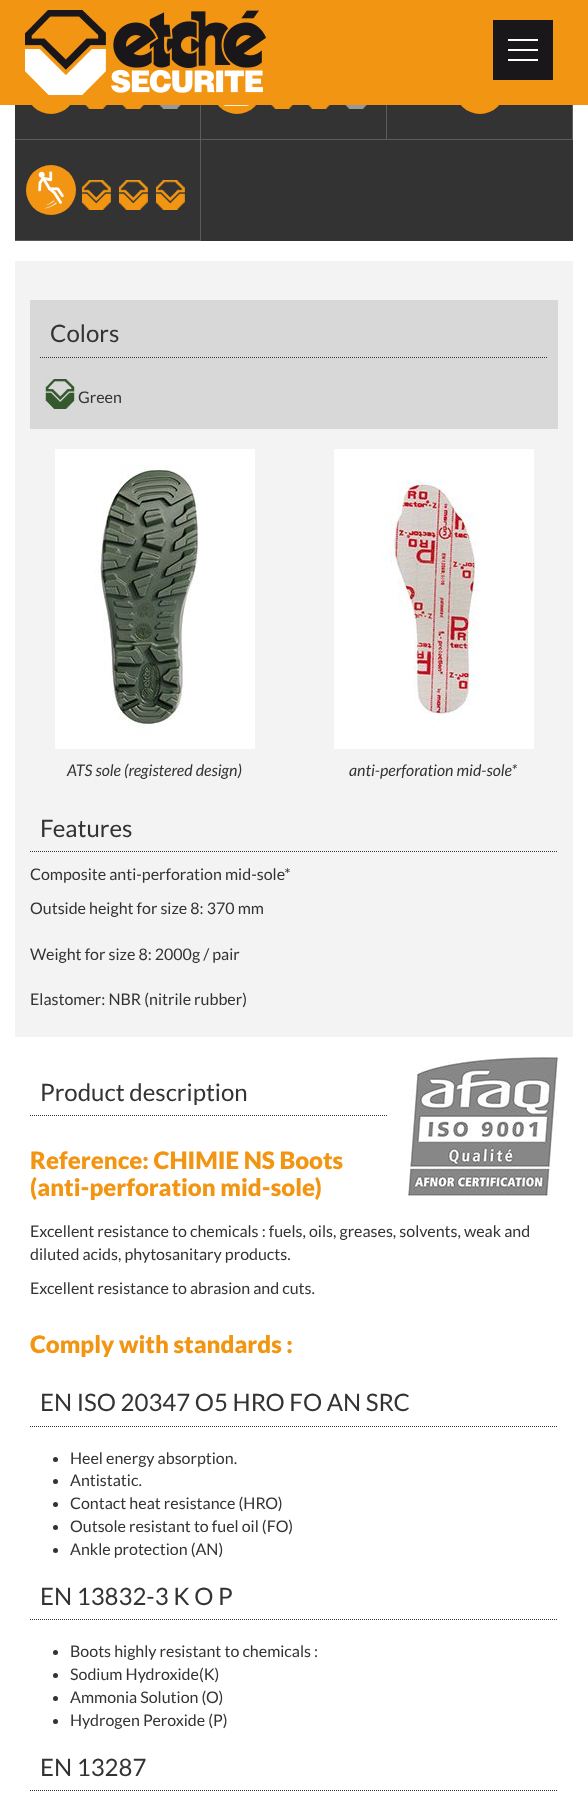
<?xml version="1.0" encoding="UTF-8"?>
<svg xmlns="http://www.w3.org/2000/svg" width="588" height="1794">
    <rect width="100%" height="100%" fill="#FFFFFF"/>
    <rect x="15" y="105" width="558" height="136" fill="#333333"/>
    <path d="M 201 39 V 140 L 200 139 V 39 Z" fill="#5C5C5C"/>
    <circle cx="51" cy="89" r="25" fill="#F29512"/>
    <path d="M 387 39 V 140 L 386 139 V 39 Z" fill="#5C5C5C"/>
    <circle cx="237" cy="89" r="25" fill="#F29512"/>
    <path d="M 573 39 V 140 L 572 139 V 39 Z" fill="#5C5C5C"/>
    <circle cx="480" cy="89" r="25" fill="#F29512"/>
    <rect x="0" y="0" width="588" height="105" fill="#F29512"/>
    <image x="25" y="10" width="241" height="85" href="img_01.png"/>
    <rect x="493" y="20" width="60" height="60" fill="#1A171B"/>
    <rect x="508" y="49" width="30" height="2" fill="#FFFFFF"/>
    <rect x="508" y="39" width="30" height="2" fill="#FFFFFF"/>
    <rect x="508" y="59" width="30" height="2" fill="#FFFFFF"/>
    <path d="M 201 140 H 15 V 139 H 200 Z" fill="#FFFFFF" fill-opacity="0.2"/>
    <image x="85" y="105" width="96" height="4" href="img_02.png"/>
    <path d="M 387 140 H 201 V 139 H 386 Z" fill="#FFFFFF" fill-opacity="0.2"/>
    <image x="223" y="105" width="26" height="1" href="img_03.png"/>
    <image x="271" y="105" width="96" height="4" href="img_02.png"/>
    <path d="M 573 140 H 387 V 139 H 572 Z" fill="#FFFFFF" fill-opacity="0.2"/>
    <path d="M 201 140 V 241 L 200 240 V 140 Z" fill="#5C5C5C"/>
    <path d="M 201 241 H 15 V 240 H 200 Z" fill="#FFFFFF" fill-opacity="0.2"/>
    <circle cx="51" cy="190" r="25" fill="#F29512"/>
    <image x="38" y="171" width="26" height="38" href="img_04.png"/>
    <image x="82" y="180" width="103" height="30" href="img_05.png"/>
    <rect x="15" y="261" width="558" height="776" fill="#F3F3F3"/>
    <rect x="30" y="300" width="528" height="129" fill="#D8D8D8"/>
    <path d="M 40 357.5 H 548" fill="none" stroke="#333333" stroke-dasharray="1 1"/>
    <text x="50" y="342" font-family="Lato" font-size="24" fill="#333333">Colors</text>
    <rect x="45" y="379" width="30" height="30" fill="#35582D"/>
    <image x="45" y="379" width="30" height="30" href="img_06.png"/>
    <text x="78" y="403" font-family="Lato" font-size="16" fill="#333333">Green</text>
    <image x="55" y="449" width="200" height="300" href="img_07.png"/>
    <text x="67" y="776" font-family="Lato" font-size="16" font-style="italic" fill="#333333">ATS sole (registered design)</text>
    <image x="334" y="449" width="200" height="300" href="img_08.png"/>
    <text x="349" y="776" font-family="Lato" font-size="16" font-style="italic" fill="#333333">anti-perforation mid-sole*</text>
    <path d="M 30 851.5 H 558" fill="none" stroke="#333333" stroke-dasharray="1 1"/>
    <text x="40" y="837" font-family="Lato" font-size="24" fill="#333333">Features</text>
    <text x="30" y="880" font-family="Lato" font-size="16" fill="#333333">Composite anti-perforation mid-sole*</text>
    <text x="30" y="914" font-family="Lato" font-size="16" fill="#333333">Outside height for size 8: 370 mm</text>
    <text x="30" y="960" font-family="Lato" font-size="16" fill="#333333">Weight for size 8: 2000g / pair</text>
    <text x="30" y="1005" font-family="Lato" font-size="16" fill="#333333">Elastomer: NBR (nitrile rubber)</text>
    <image x="408" y="1057" width="150" height="139" href="img_09.png"/>
    <path d="M 30 1115.5 H 388" fill="none" stroke="#333333" stroke-dasharray="1 1"/>
    <text x="40" y="1101" font-family="Lato" font-size="24" fill="#333333">Product description</text>
    <text font-family="Lato" font-size="24" font-weight="900" fill="#F29512">
        <tspan x="30" y="1169">Reference: CHIMIE NS Boots</tspan>
        <tspan x="30" y="1196">(anti-perforation mid-sole)</tspan>
    </text>
    <text font-family="Lato" font-size="16" fill="#333333">
        <tspan x="30" y="1237">Excellent resistance to chemicals : fuels, oils, greases, solvents, weak and</tspan>
        <tspan x="30" y="1260">diluted acids, phytosanitary products.</tspan>
    </text>
    <text x="30" y="1294" font-family="Lato" font-size="16" fill="#333333">Excellent resistance to abrasion and cuts.</text>
    <text x="30" y="1353" font-family="Lato" font-size="24" font-weight="900" fill="#F29512">Comply with standards :</text>
    <path d="M 30 1426.5 H 558" fill="none" stroke="#333333" stroke-dasharray="1 1"/>
    <text x="40" y="1411" font-family="Lato" font-size="24" fill="#333333">EN ISO 20347 O5 HRO FO AN SRC</text>
    <circle cx="55.5" cy="1459.5" r="2.5" fill="#333333"/>
    <text x="70" y="1464" font-family="Lato" font-size="16" fill="#333333">Heel energy absorption.</text>
    <circle cx="55.5" cy="1481.5" r="2.5" fill="#333333"/>
    <text x="70" y="1486" font-family="Lato" font-size="16" fill="#333333">Antistatic.</text>
    <circle cx="55.5" cy="1504.5" r="2.5" fill="#333333"/>
    <text x="70" y="1509" font-family="Lato" font-size="16" fill="#333333">Contact heat resistance (HRO)</text>
    <circle cx="55.5" cy="1527.5" r="2.5" fill="#333333"/>
    <text x="70" y="1532" font-family="Lato" font-size="16" fill="#333333">Outsole resistant to fuel oil (FO)</text>
    <circle cx="55.5" cy="1550.5" r="2.5" fill="#333333"/>
    <text x="70" y="1555" font-family="Lato" font-size="16" fill="#333333">Ankle protection (AN)</text>
    <path d="M 30 1619.5 H 558" fill="none" stroke="#333333" stroke-dasharray="1 1"/>
    <text x="40" y="1605" font-family="Lato" font-size="24" fill="#333333">EN 13832-3 K O P</text>
    <circle cx="55.5" cy="1652.5" r="2.5" fill="#333333"/>
    <text x="70" y="1657" font-family="Lato" font-size="16" fill="#333333">Boots highly resistant to chemicals :</text>
    <circle cx="55.5" cy="1675.5" r="2.5" fill="#333333"/>
    <text x="70" y="1680" font-family="Lato" font-size="16" fill="#333333">Sodium Hydroxide(K)</text>
    <circle cx="55.5" cy="1698.5" r="2.5" fill="#333333"/>
    <text x="70" y="1703" font-family="Lato" font-size="16" fill="#333333">Ammonia Solution (O)</text>
    <circle cx="55.5" cy="1721.5" r="2.5" fill="#333333"/>
    <text x="70" y="1726" font-family="Lato" font-size="16" fill="#333333">Hydrogen Peroxide (P)</text>
    <path d="M 30 1790.5 H 558" fill="none" stroke="#333333" stroke-dasharray="1 1"/>
    <text x="40" y="1776" font-family="Lato" font-size="24" fill="#333333">EN 13287</text>
</svg>
